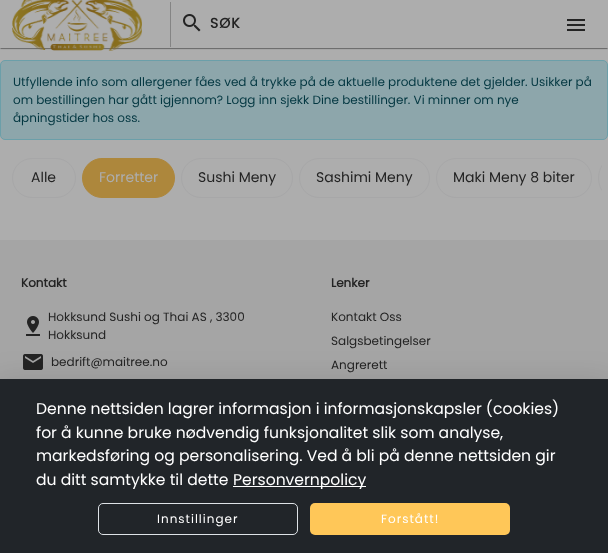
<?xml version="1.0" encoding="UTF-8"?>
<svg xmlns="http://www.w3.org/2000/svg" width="608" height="553">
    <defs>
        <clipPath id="clip1"><rect x="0" y="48" width="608" height="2"/></clipPath>
        <filter id="blur1" x="-50%" y="-200%" width="200%" height="500%"><feGaussianBlur stdDeviation="1.5"/></filter>
        <clipPath id="clip2"><rect x="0" y="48" width="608" height="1"/></clipPath>
        <filter id="blur2" x="-50%" y="-200%" width="200%" height="500%"><feGaussianBlur stdDeviation="0.5"/></filter>
        <clipPath id="clip3"><rect x="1" y="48" width="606" height="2"/></clipPath>
        <clipPath id="clip4"><rect x="6" y="152" width="596" height="52"/></clipPath>
        <filter id="blur3" x="-50%" y="-200%" width="200%" height="500%"><feGaussianBlur stdDeviation="15"/></filter>
    </defs>
    <rect width="100%" height="100%" fill="#ADADAD"/>
    <g clip-path="url(#clip1)">
        <rect x="0" y="1" width="608" height="48" fill="#000000" fill-opacity="0.12" filter="url(#blur1)"/>
    </g>
    <g clip-path="url(#clip2)">
        <rect x="0" y="1" width="608" height="48" fill="#000000" fill-opacity="0.14" filter="url(#blur2)"/>
    </g>
    <g clip-path="url(#clip3)">
        <rect x="1" y="3" width="606" height="46" fill="#000000" fill-opacity="0.2" filter="url(#blur2)"/>
    </g>
    <image x="12" y="0" width="130" height="51" href="img_01.png"/>
    <rect x="170" y="2" width="1" height="45" fill="#848484"/>
    <image x="183" y="14" width="18" height="18" href="img_02.png"/>
    <text x="210" y="28" font-family="Poppins" font-size="14" font-weight="700" letter-spacing="1" fill="#232323">SØK</text>
    <image x="567" y="19" width="18" height="12" href="img_03.png"/>
    <rect x="0.5" y="60.5" width="607" height="79" rx="4.5" fill="#8DA6AB" stroke="#6B9FA9"/>
    <text font-family="Poppins" font-size="12" fill="#033741">
        <tspan x="13" y="86">Utfyllende info som allergener fåes ved å trykke på de aktuelle produktene det gjelder. Usikker på</tspan>
        <tspan x="13" y="104">om bestillingen har gått igjennom? Logg inn sjekk Dine bestillinger. Vi minner om nye</tspan>
        <tspan x="13" y="122">åpningstider hos oss.</tspan>
    </text>
    <rect x="12.5" y="158.5" width="63" height="39" rx="19.5" fill="none" stroke="#A7A7A8"/>
    <text x="31" y="182" font-family="Poppins" font-size="14" fill="#232323">Alle</text>
    <rect x="82.5" y="158.5" width="92" height="39" rx="19.5" fill="#AD873C" stroke="#AD873C"/>
    <text x="99" y="182" font-family="Poppins" font-size="14" fill="#ADADAD">Forretter</text>
    <rect x="181.5" y="158.5" width="111" height="39" rx="19.5" fill="none" stroke="#A7A7A8"/>
    <text x="198" y="182" font-family="Poppins" font-size="14" fill="#232323">Sushi Meny</text>
    <rect x="299.5" y="158.5" width="130" height="39" rx="19.5" fill="none" stroke="#A7A7A8"/>
    <text x="316" y="182" font-family="Poppins" font-size="14" fill="#232323">Sashimi Meny</text>
    <rect x="436.5" y="158.5" width="155" height="39" rx="19.5" fill="none" stroke="#A7A7A8"/>
    <text x="453" y="182" font-family="Poppins" font-size="14" fill="#232323">Maki Meny 8 biter</text>
    <g clip-path="url(#clip4)">
        <rect x="598.5" y="158.5" width="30" height="39" rx="19.5" fill="none" stroke="#A7A7A8"/>
    </g>
    <rect x="0" y="240" width="608" height="139" fill="#A5A5A5"/>
    <text x="21" y="287" font-family="Poppins" font-size="12" font-weight="700" fill="#232323">Kontakt</text>
    <image x="26" y="316" width="14" height="20" href="img_04.png"/>
    <text font-family="Poppins" font-size="12" fill="#232323">
        <tspan x="48" y="321">Hokksund Sushi og Thai AS , 3300</tspan>
        <tspan x="48" y="339">Hokksund</tspan>
    </text>
    <image x="23" y="354" width="20" height="16" href="img_05.png"/>
    <text x="51" y="366" font-family="Poppins" font-size="12" fill="#232323">bedrift@maitree.no</text>
    <text x="331" y="287" font-family="Poppins" font-size="12" font-weight="700" fill="#232323">Lenker</text>
    <text x="331" y="321" font-family="Poppins" font-size="12" fill="#232323">Kontakt Oss</text>
    <text x="331" y="345" font-family="Poppins" font-size="12" fill="#232323">Salgsbetingelser</text>
    <text x="331" y="369" font-family="Poppins" font-size="12" fill="#232323">Angrerett</text>
    <rect x="-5" y="380" width="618" height="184" fill="#000000" fill-opacity="0.12" filter="url(#blur3)"/>
    <rect x="0" y="379" width="608" height="174" fill="#212529"/>
    <text font-family="Poppins" font-size="15.6" fill="#FFFFFF">
        <tspan x="36" y="414">Denne nettsiden lagrer informasjon i informasjonskapsler (cookies)</tspan>
        <tspan x="36" y="438">for å kunne bruke nødvendig funksjonalitet slik som analyse,</tspan>
        <tspan x="36" y="461">markedsføring og personalisering. Ved å bli på denne nettsiden gir</tspan>
        <tspan x="36" y="485">du ditt samtykke til dette</tspan>
    </text>
    <rect x="233" y="486" width="133" height="1" fill="#FFFFFF"/>
    <text x="233" y="485" font-family="Poppins" font-size="15.6" fill="#FFFFFF">Personvernpolicy</text>
    <rect x="98.5" y="503.5" width="199" height="31" rx="4.5" fill="none" stroke="#DEE2E6"/>
    <text x="157" y="523" font-family="Poppins" font-size="12" letter-spacing="1" fill="#FFFFFF">Innstillinger</text>
    <rect x="310" y="503" width="200" height="32" rx="5" fill="#FFC758"/>
    <text x="381" y="523" font-family="Poppins" font-size="12" letter-spacing="1" fill="#FFFFFF">Forstått!</text>
</svg>
